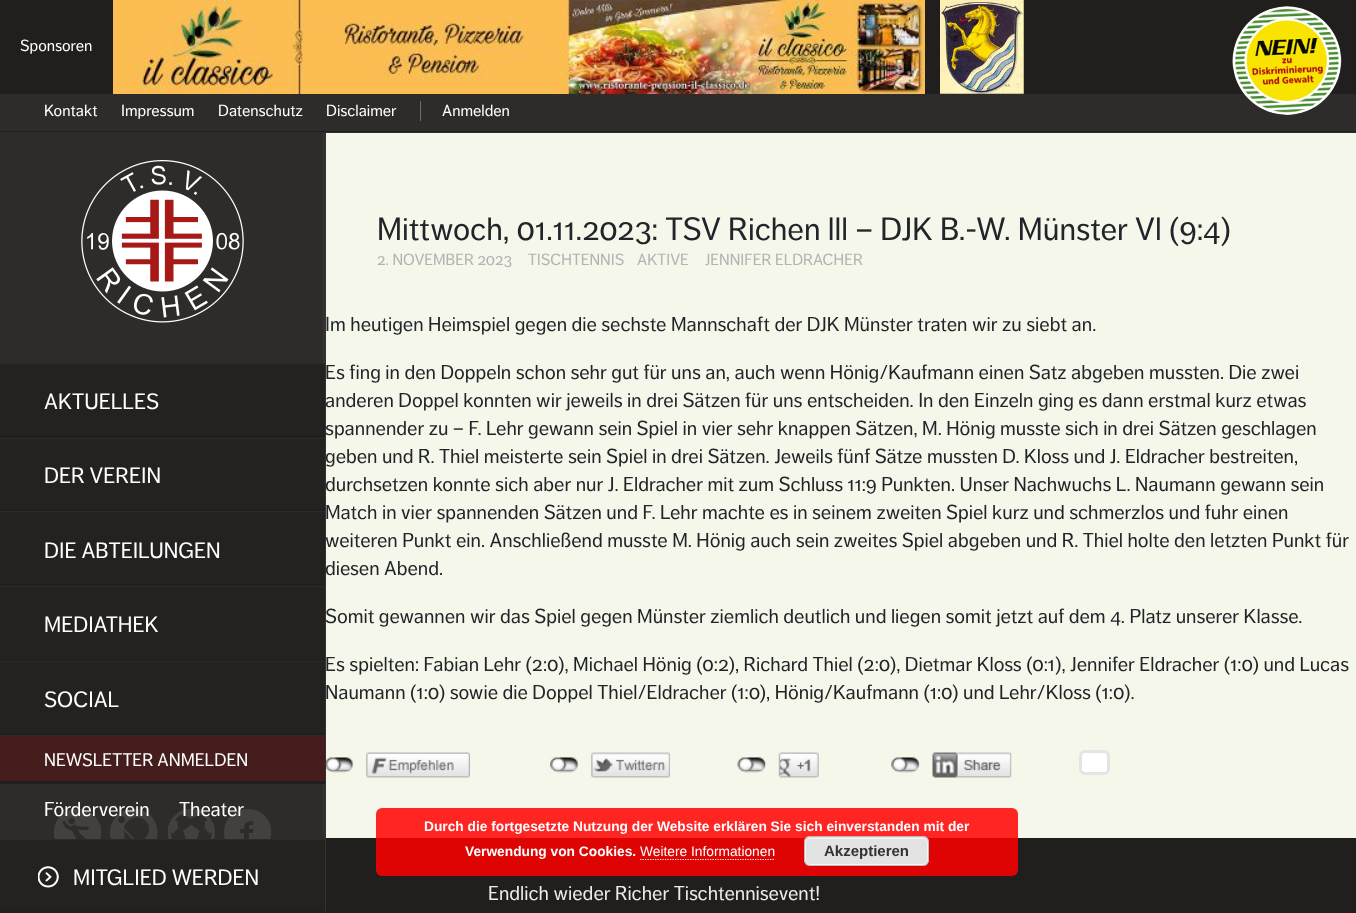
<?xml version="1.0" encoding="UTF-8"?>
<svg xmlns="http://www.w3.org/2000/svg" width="1356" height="913">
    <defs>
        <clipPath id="clip1"><rect x="224" y="809" width="47" height="47"/></clipPath>
    </defs>
    <rect width="100%" height="100%" fill="#F4F7EA"/>
    <rect x="0" y="0" width="1356" height="94" fill="#211F1E"/>
    <text x="20" y="51" font-family="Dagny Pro" font-size="16" fill="#FFFFFF">Sponsoren</text>
    <image x="113" y="0" width="812" height="94" href="img_01.png"/>
    <image x="940" y="0" width="84" height="94" href="img_02.png"/>
    <rect x="0" y="94" width="1356" height="39" fill="#2E2C2A"/>
    <image x="1232" y="6" width="110" height="109" href="img_03.png"/>
    <rect x="0" y="131" width="1356" height="1" fill="#211F1E"/>
    <text x="44" y="116" font-family="Dagny Pro" font-size="16" fill="#FFFFFF">Kontakt</text>
    <text x="121" y="116" font-family="Dagny Pro" font-size="16" fill="#FFFFFF">Impressum</text>
    <text x="218" y="116" font-family="Dagny Pro" font-size="16" fill="#FFFFFF">Datenschutz</text>
    <text x="326" y="116" font-family="Dagny Pro" font-size="16" fill="#FFFFFF">Disclaimer</text>
    <rect x="420" y="101" width="1" height="20" fill="#716A67"/>
    <text x="442" y="116" font-family="Dagny Pro" font-size="16" fill="#FFFFFF">Anmelden</text>
    <rect x="0" y="133" width="323" height="706" fill="#2E2C2A"/>
    <text font-family="Dagny Pro" font-size="20" fill="#212529">
        <tspan x="325" y="407">anderen Doppel konnten wir jeweils in drei Sätzen für uns entscheiden. In den Einzeln ging es dann erstmal kurz etwas</tspan>
        <tspan x="325" y="435">spannender zu – F. Lehr gewann sein Spiel in vier sehr knappen Sätzen, M. Hönig musste sich in drei Sätzen geschlagen</tspan>
        <tspan x="325" y="463">geben und R. Thiel meisterte sein Spiel in drei Sätzen. Jeweils fünf Sätze mussten D. Kloss und J. Eldracher bestreiten,</tspan>
        <tspan x="325" y="491">durchsetzen konnte sich aber nur J. Eldracher mit zum Schluss 11:9 Punkten. Unser Nachwuchs L. Naumann gewann sein</tspan>
    </text>
    <text font-family="Dagny Pro" font-size="20" fill="#212529">
        <tspan x="325" y="547">weiteren Punkt ein. Anschließend musste M. Hönig auch sein zweites Spiel abgeben und R. Thiel holte den letzten Punkt für</tspan>
        <tspan x="325" y="575">diesen Abend.</tspan>
    </text>
    <text x="325" y="623" font-family="Dagny Pro" font-size="20" fill="#212529">Somit gewannen wir das Spiel gegen Münster ziemlich deutlich und liegen somit jetzt auf dem 4. Platz unserer Klasse.</text>
    <rect x="323" y="133" width="3" height="780" fill="#34312F"/>
    <image x="81" y="160" width="163" height="163" href="img_04.png"/>
    <rect x="0" y="364" width="325" height="71" fill="#242220"/>
    <rect x="0" y="363" width="325" height="1" fill="#2C2928"/>
    <rect x="0" y="435" width="325" height="3" fill="#211F1E"/>
    <text x="44" y="409" font-family="Dagny Pro" font-size="22" fill="#FFFFFF">AKTUELLES</text>
    <rect x="0" y="439" width="325" height="70" fill="#242220"/>
    <rect x="0" y="438" width="325" height="1" fill="#2C2928"/>
    <rect x="0" y="509" width="325" height="2" fill="#211F1E"/>
    <text x="44" y="483" font-family="Dagny Pro" font-size="22" fill="#FFFFFF">DER VEREIN</text>
    <rect x="0" y="512" width="325" height="72" fill="#242220"/>
    <rect x="0" y="511" width="325" height="1" fill="#2C2928"/>
    <rect x="0" y="584" width="325" height="2" fill="#211F1E"/>
    <text x="44" y="558" font-family="Dagny Pro" font-size="22" fill="#FFFFFF">DIE ABTEILUNGEN</text>
    <rect x="0" y="587" width="325" height="72" fill="#242220"/>
    <rect x="0" y="586" width="325" height="1" fill="#2C2928"/>
    <rect x="0" y="659" width="325" height="2" fill="#211F1E"/>
    <text x="44" y="632" font-family="Dagny Pro" font-size="22" fill="#FFFFFF">MEDIATHEK</text>
    <rect x="0" y="662" width="325" height="71" fill="#242220"/>
    <rect x="0" y="661" width="325" height="1" fill="#2C2928"/>
    <rect x="0" y="733" width="325" height="2" fill="#211F1E"/>
    <text x="44" y="707" font-family="Dagny Pro" font-size="22" fill="#FFFFFF">SOCIAL</text>
    <rect x="0" y="736" width="325" height="45" fill="#461D1D"/>
    <rect x="0" y="735" width="325" height="1" fill="#2C2928"/>
    <rect x="0" y="781" width="325" height="3" fill="#211F1E"/>
    <text x="44" y="766" font-family="Dagny Pro" font-size="18" fill="#FFFFFF">NEWSLETTER ANMELDEN</text>
    <image x="54" y="809" width="47" height="30" href="img_05.png"/>
    <image x="110" y="809" width="48" height="30" href="img_06.png"/>
    <image x="168" y="809" width="47" height="30" href="img_07.png"/>
    <g clip-path="url(#clip1)">
        <path d="M 248 809 C 216 809 216 856 248 856 C 279 856 279 809 248 809 Z M 253 825 C 248 825 249 824 249 829 H 253 V 833 H 249 V 844 H 244 V 833 H 240 V 829 H 244 C 244 822 247 821 253 821 Z" fill="#44403E"/>
    </g>
    <text x="44" y="816" font-family="Dagny Pro" font-size="20" fill="#FFFFFF">Förderverein</text>
    <text x="179" y="816" font-family="Dagny Pro" font-size="20" fill="#FFFFFF">Theater</text>
    <rect x="0" y="840" width="325" height="71" fill="#242220"/>
    <rect x="0" y="839" width="325" height="1" fill="#2C2928"/>
    <rect x="0" y="911" width="325" height="2" fill="#211F1E"/>
    <image x="38" y="866" width="21" height="22" href="img_08.png"/>
    <text x="73" y="885" font-family="Dagny Pro" font-size="22" fill="#FFFFFF">MITGLIED WERDEN</text>
    <text x="377" y="240" font-family="Dagny Pro" font-size="32" fill="#212529">Mittwoch, 01.11.2023: TSV Richen lll – DJK B.-W. Münster Vl (9:4)</text>
    <text x="377" y="265" font-family="Dagny Pro" font-size="16" fill="#B3B3B3">2. NOVEMBER 2023</text>
    <text x="528" y="265" font-family="Dagny Pro" font-size="16" fill="#B3B3B3">TISCHTENNIS</text>
    <text x="637" y="265" font-family="Dagny Pro" font-size="16" fill="#B3B3B3">AKTIVE</text>
    <text x="705" y="265" font-family="Dagny Pro" font-size="16" fill="#B3B3B3">JENNIFER ELDRACHER</text>
    <text x="325" y="331" font-family="Dagny Pro" font-size="20" fill="#212529">Im heutigen Heimspiel gegen die sechste Mannschaft der DJK Münster traten wir zu siebt an.</text>
    <text x="325" y="379" font-family="Dagny Pro" font-size="20" fill="#212529">Es fing in den Doppeln schon sehr gut für uns an, auch wenn Hönig/Kaufmann einen Satz abgeben mussten. Die zwei</text>
    <text x="325" y="519" font-family="Dagny Pro" font-size="20" fill="#212529">Match in vier spannenden Sätzen und F. Lehr machte es in seinem zweiten Spiel kurz und schmerzlos und fuhr einen</text>
    <text font-family="Dagny Pro" font-size="20" fill="#212529">
        <tspan x="325" y="671">Es spielten: Fabian Lehr (2:0), Michael Hönig (0:2), Richard Thiel (2:0), Dietmar Kloss (0:1), Jennifer Eldracher (1:0) und Lucas</tspan>
        <tspan x="325" y="699">Naumann (1:0) sowie die Doppel Thiel/Eldracher (1:0), Hönig/Kaufmann (1:0) und Lehr/Kloss (1:0).</tspan>
    </text>
    <image x="326" y="757" width="28" height="16" href="img_09.png"/>
    <image x="366" y="752" width="104" height="26" href="img_10.png"/>
    <image x="550" y="757" width="29" height="16" href="img_11.png"/>
    <image x="591" y="752" width="79" height="26" href="img_12.png"/>
    <image x="737" y="757" width="30" height="16" href="img_13.png"/>
    <image x="778" y="752" width="41" height="26" href="img_14.png"/>
    <image x="891" y="757" width="29" height="16" href="img_15.png"/>
    <image x="932" y="752" width="80" height="26" href="img_16.png"/>
    <rect x="1080.5" y="751.5" width="28" height="22" rx="4.5" fill="#FFFFFF" stroke="#E7E3E3" stroke-width="3"/>
    <rect x="326" y="838" width="1030" height="75" fill="#211F1E"/>
    <text x="488" y="900" font-family="Dagny Pro" font-size="20" fill="#ECEBEB">Endlich wieder Richer Tischtennisevent!</text>
    <rect x="376" y="808" width="642" height="68" rx="6" fill="#FF0000" fill-opacity="0.85"/>
    <text x="424" y="831" font-family="Liberation Sans" font-size="13.75" font-weight="700" fill="#FFFFFF">Durch die fortgesetzte Nutzung der Website erklären Sie sich einverstanden mit der</text>
    <text x="465" y="856" font-family="Liberation Sans" font-size="13.75" font-weight="700" fill="#FFFFFF">Verwendung von Cookies.</text>
    <text x="640" y="856" font-family="Liberation Sans" font-size="13.75" fill="#FFFFFF">Weitere Informationen</text>
    <path d="M 640 859.5 H 775" fill="none" stroke="#FFFFFF" stroke-width="1.2" stroke-dasharray="1.25 1.25"/>
    <rect x="804" y="836" width="125" height="30" rx="6" fill="#E3E3E3"/>
    <rect x="805.5" y="838.5" width="122" height="26" rx="4.5" fill="none" stroke="#F6F6F6"/>
    <rect x="804.5" y="836.5" width="124" height="29" rx="5.5" fill="none" stroke="#BBBBBB"/>
    <text x="824" y="856" font-family="Liberation Sans" font-size="15" font-weight="700" fill="#333333">Akzeptieren</text>
</svg>
